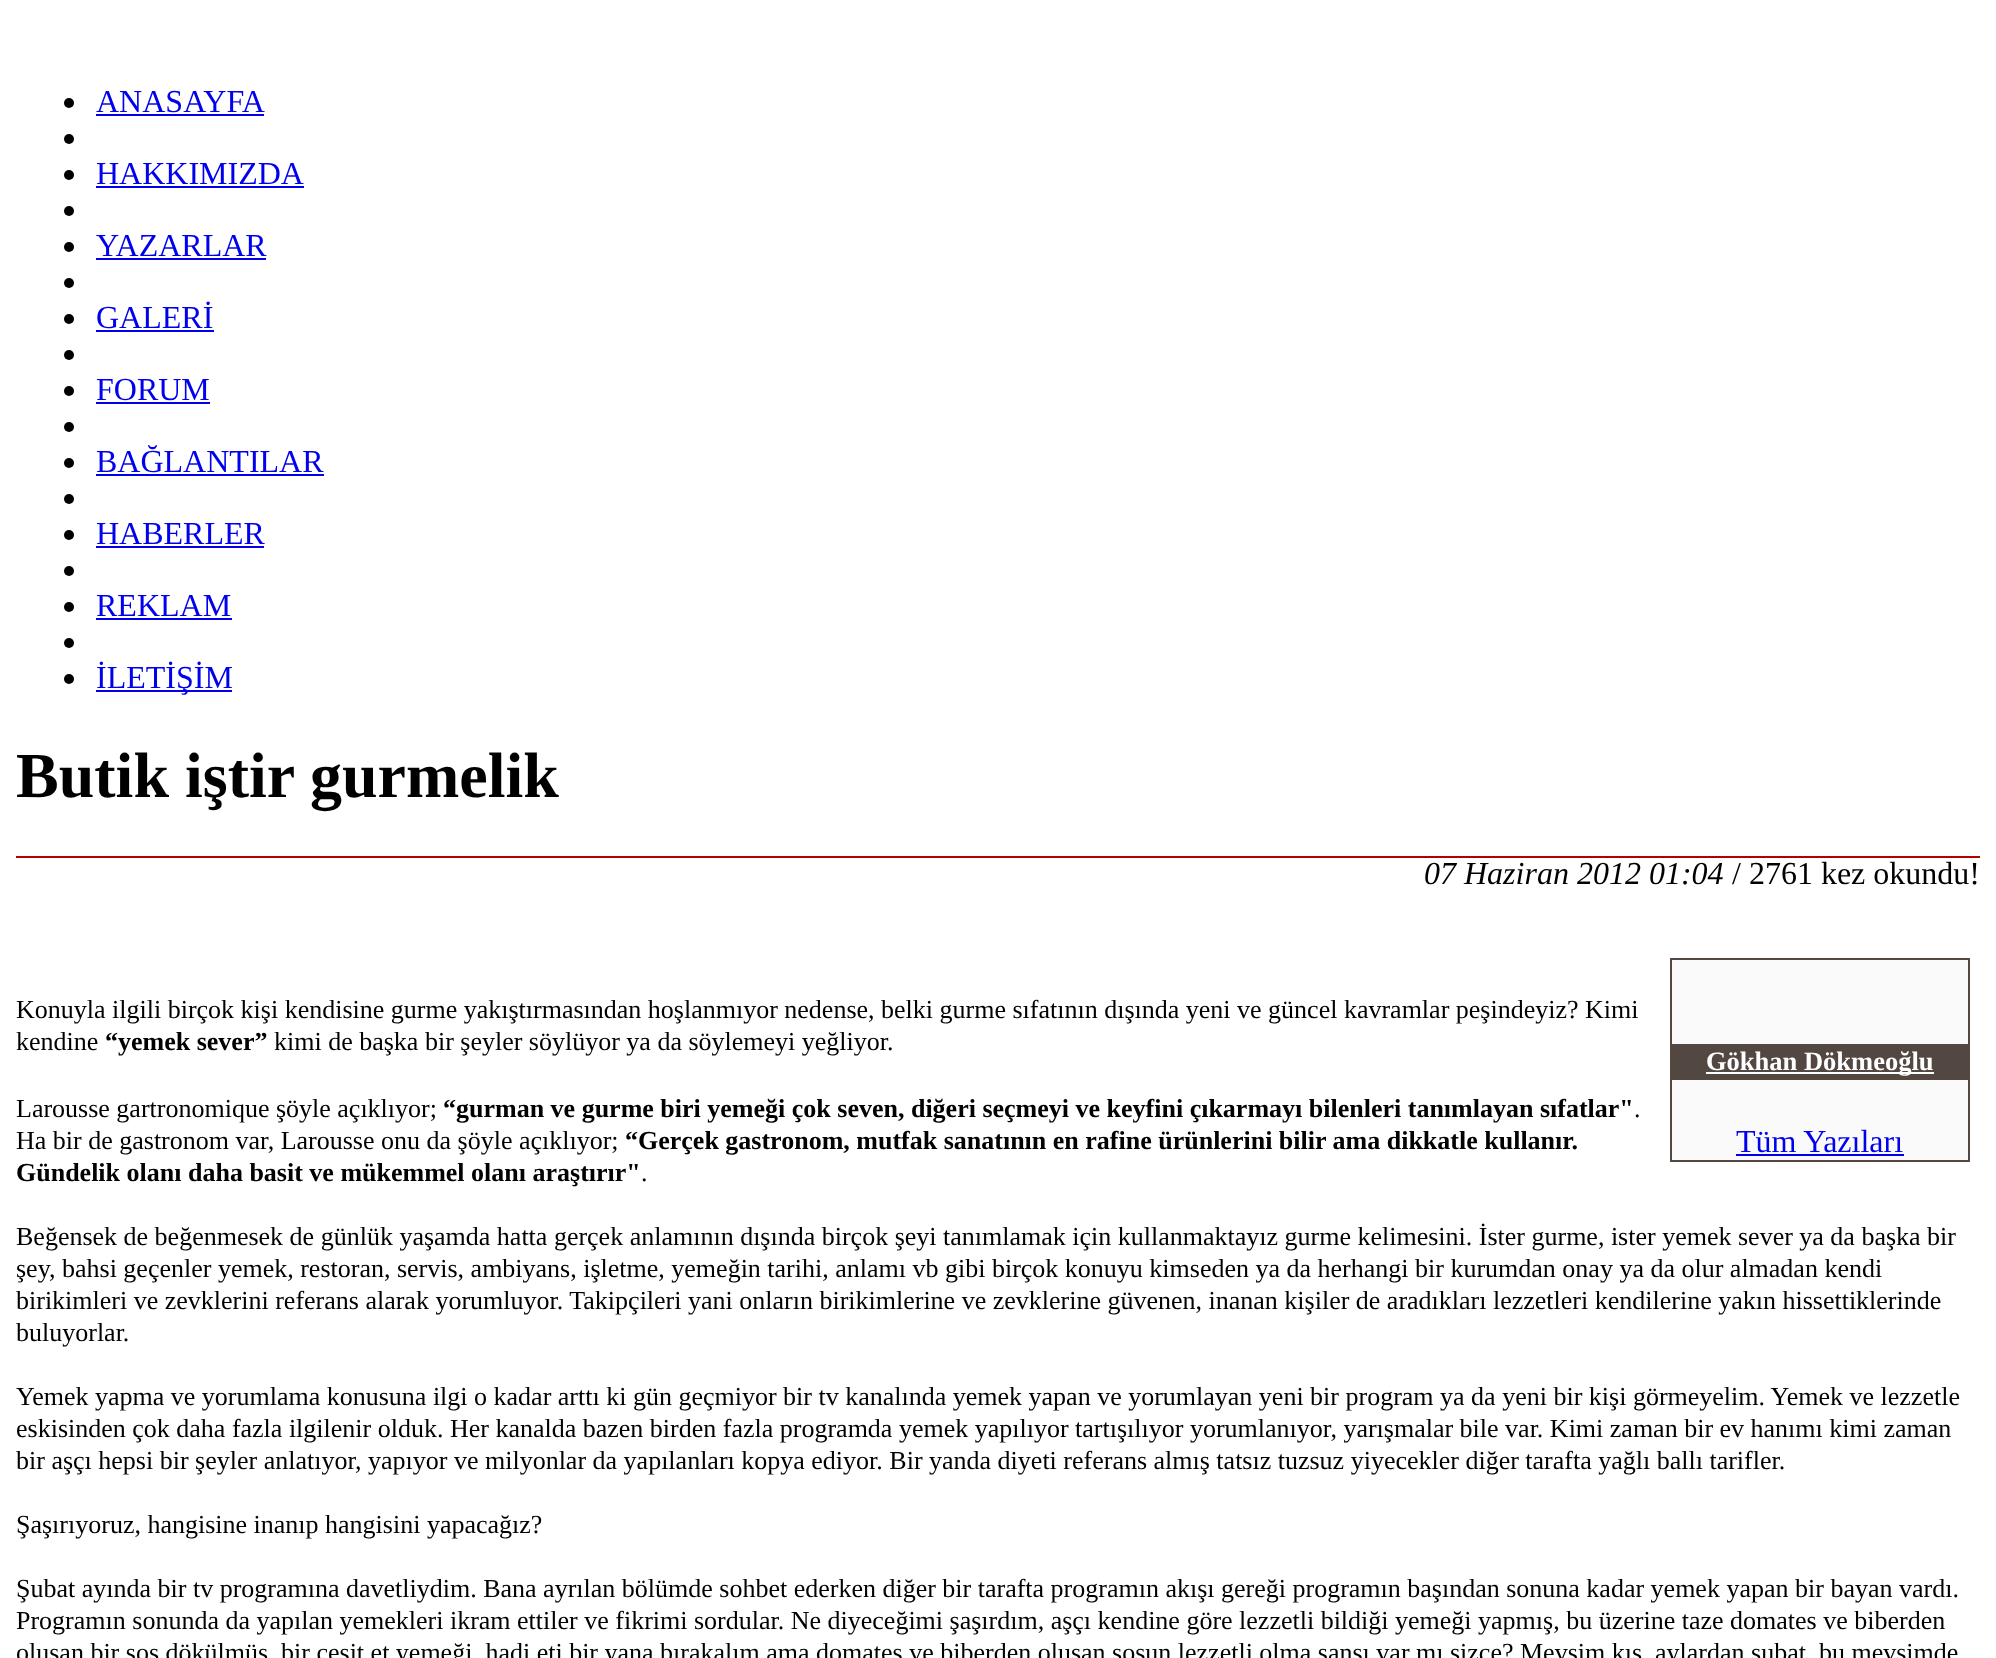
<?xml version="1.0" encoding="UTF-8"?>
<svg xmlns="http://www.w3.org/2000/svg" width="1996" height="1658">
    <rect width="100%" height="100%" fill="#FFFFFF"/>
    <circle cx="69" cy="103" r="5" fill="#000000"/>
    <text x="96" y="112" font-family="Liberation Serif" font-size="32" fill="#0000EE">ANASAYFA</text>
    <rect x="96" y="114" width="168" height="2" fill="#0000EE"/>
    <circle cx="69" cy="139" r="5" fill="#000000"/>
    <circle cx="69" cy="175" r="5" fill="#000000"/>
    <text x="96" y="184" font-family="Liberation Serif" font-size="32" fill="#0000EE">HAKKIMIZDA</text>
    <rect x="96" y="186" width="208" height="2" fill="#0000EE"/>
    <circle cx="69" cy="211" r="5" fill="#000000"/>
    <circle cx="69" cy="247" r="5" fill="#000000"/>
    <text x="96" y="256" font-family="Liberation Serif" font-size="32" fill="#0000EE">YAZARLAR</text>
    <rect x="96" y="258" width="170" height="2" fill="#0000EE"/>
    <circle cx="69" cy="283" r="5" fill="#000000"/>
    <circle cx="69" cy="319" r="5" fill="#000000"/>
    <text x="96" y="328" font-family="Liberation Serif" font-size="32" fill="#0000EE">GALERİ</text>
    <rect x="96" y="330" width="118" height="2" fill="#0000EE"/>
    <circle cx="69" cy="355" r="5" fill="#000000"/>
    <circle cx="69" cy="391" r="5" fill="#000000"/>
    <text x="96" y="400" font-family="Liberation Serif" font-size="32" fill="#0000EE">FORUM</text>
    <rect x="96" y="402" width="114" height="2" fill="#0000EE"/>
    <circle cx="69" cy="427" r="5" fill="#000000"/>
    <circle cx="69" cy="463" r="5" fill="#000000"/>
    <text x="96" y="472" font-family="Liberation Serif" font-size="32" fill="#0000EE">BAĞLANTILAR</text>
    <rect x="96" y="474" width="228" height="2" fill="#0000EE"/>
    <circle cx="69" cy="499" r="5" fill="#000000"/>
    <circle cx="69" cy="535" r="5" fill="#000000"/>
    <text x="96" y="544" font-family="Liberation Serif" font-size="32" fill="#0000EE">HABERLER</text>
    <rect x="96" y="546" width="168" height="2" fill="#0000EE"/>
    <circle cx="69" cy="571" r="5" fill="#000000"/>
    <circle cx="69" cy="607" r="5" fill="#000000"/>
    <text x="96" y="616" font-family="Liberation Serif" font-size="32" fill="#0000EE">REKLAM</text>
    <rect x="96" y="618" width="136" height="2" fill="#0000EE"/>
    <circle cx="69" cy="643" r="5" fill="#000000"/>
    <circle cx="69" cy="679" r="5" fill="#000000"/>
    <rect x="96" y="690" width="136" height="2" fill="#0000EE"/>
    <text x="96" y="688" font-family="Liberation Serif" font-size="32" fill="#0000EE">İLETİŞİM</text>
    <rect x="16" y="856" width="1964" height="2" fill="#B20000"/>
    <text x="16" y="797" font-family="Liberation Serif" font-size="64" font-weight="700" fill="#000000">Butik iştir gurmelik</text>
    <text x="1424" y="884" font-family="Liberation Serif" font-size="32" font-style="italic" fill="#000000">07 Haziran 2012 01:04</text>
    <text x="1732" y="884" font-family="Liberation Serif" font-size="32" fill="#000000">/ 2761 kez okundu!</text>
    <text font-family="Liberation Serif" font-size="26" fill="#000000">
        <tspan x="16" y="1018">Konuyla ilgili birçok kişi kendisine gurme yakıştırmasından hoşlanmıyor nedense, belki gurme sıfatının dışında yeni ve güncel kavramlar peşindeyiz? Kimi</tspan>
        <tspan x="16" y="1050">kendine</tspan>
    </text>
    <text x="105" y="1050" font-family="Liberation Serif" font-size="26" font-weight="700" fill="#000000">“yemek sever”</text>
    <text x="274" y="1050" font-family="Liberation Serif" font-size="26" fill="#000000">kimi de başka bir şeyler söylüyor ya da söylemeyi yeğliyor.</text>
    <rect x="1671" y="959" width="298" height="202" fill="#FAFAFA" stroke="#534741" stroke-width="2"/>
    <rect x="1672" y="1044" width="296" height="36" fill="#534741"/>
    <rect x="1706" y="1072" width="228" height="2" fill="#FFFFFF"/>
    <text x="1706" y="1070" font-family="Liberation Serif" font-size="26.5" font-weight="700" fill="#FFFFFF">Gökhan Dökmeoğlu</text>
    <text x="1736" y="1152" font-family="Liberation Serif" font-size="32" fill="#0000EE">Tüm Yazıları</text>
    <rect x="1736" y="1154" width="168" height="2" fill="#0000EE"/>
    <text x="16" y="1117" font-family="Liberation Serif" font-size="26" fill="#000000">Larousse gartronomique şöyle açıklıyor;</text>
    <text x="443" y="1117" font-family="Liberation Serif" font-size="26" font-weight="700" fill="#000000">“gurman ve gurme biri yemeği çok seven, diğeri seçmeyi ve keyfini çıkarmayı bilenleri tanımlayan sıfatlar"</text>
    <text x="1634" y="1117" font-family="Liberation Serif" font-size="26" fill="#000000">.</text>
    <text x="16" y="1149" font-family="Liberation Serif" font-size="26" fill="#000000">Ha bir de gastronom var, Larousse onu da şöyle açıklıyor;</text>
    <text x="625" y="1149" font-family="Liberation Serif" font-size="26" font-weight="700" fill="#000000">“Gerçek gastronom, mutfak sanatının en rafine ürünlerini bilir ama dikkatle kullanır.</text>
    <text x="16" y="1181" font-family="Liberation Serif" font-size="26" font-weight="700" fill="#000000">Gündelik olanı daha basit ve mükemmel olanı araştırır"</text>
    <text x="641" y="1181" font-family="Liberation Serif" font-size="26" fill="#000000">.</text>
    <text font-family="Liberation Serif" font-size="26" fill="#000000">
        <tspan x="16" y="1245">Beğensek de beğenmesek de günlük yaşamda hatta gerçek anlamının dışında birçok şeyi tanımlamak için kullanmaktayız gurme kelimesini. İster gurme, ister yemek sever ya da başka bir</tspan>
        <tspan x="16" y="1277">şey, bahsi geçenler yemek, restoran, servis, ambiyans, işletme, yemeğin tarihi, anlamı vb gibi birçok konuyu kimseden ya da herhangi bir kurumdan onay ya da olur almadan kendi</tspan>
        <tspan x="16" y="1309">birikimleri ve zevklerini referans alarak yorumluyor. Takipçileri yani onların birikimlerine ve zevklerine güvenen, inanan kişiler de aradıkları lezzetleri kendilerine yakın hissettiklerinde</tspan>
        <tspan x="16" y="1341">buluyorlar.</tspan>
    </text>
    <text font-family="Liberation Serif" font-size="26" fill="#000000">
        <tspan x="16" y="1405">Yemek yapma ve yorumlama konusuna ilgi o kadar arttı ki gün geçmiyor bir tv kanalında yemek yapan ve yorumlayan yeni bir program ya da yeni bir kişi görmeyelim. Yemek ve lezzetle</tspan>
        <tspan x="16" y="1437">eskisinden çok daha fazla ilgilenir olduk. Her kanalda bazen birden fazla programda yemek yapılıyor tartışılıyor yorumlanıyor, yarışmalar bile var. Kimi zaman bir ev hanımı kimi zaman</tspan>
        <tspan x="16" y="1469">bir aşçı hepsi bir şeyler anlatıyor, yapıyor ve milyonlar da yapılanları kopya ediyor. Bir yanda diyeti referans almış tatsız tuzsuz yiyecekler diğer tarafta yağlı ballı tarifler.</tspan>
    </text>
    <text x="16" y="1533" font-family="Liberation Serif" font-size="26" fill="#000000">Şaşırıyoruz, hangisine inanıp hangisini yapacağız?</text>
    <text font-family="Liberation Serif" font-size="26" fill="#000000">
        <tspan x="16" y="1597">Şubat ayında bir tv programına davetliydim. Bana ayrılan bölümde sohbet ederken diğer bir tarafta programın akışı gereği programın başından sonuna kadar yemek yapan bir bayan vardı.</tspan>
        <tspan x="16" y="1629">Programın sonunda da yapılan yemekleri ikram ettiler ve fikrimi sordular. Ne diyeceğimi şaşırdım, aşçı kendine göre lezzetli bildiği yemeği yapmış, bu üzerine taze domates ve biberden</tspan>
        <tspan x="16" y="1661">oluşan bir sos dökülmüş, bir çeşit et yemeği, hadi eti bir yana bırakalım ama domates ve biberden oluşan sosun lezzetli olma şansı var mı sizce? Mevsim kış, aylardan şubat, bu mevsimde</tspan>
    </text>
</svg>
